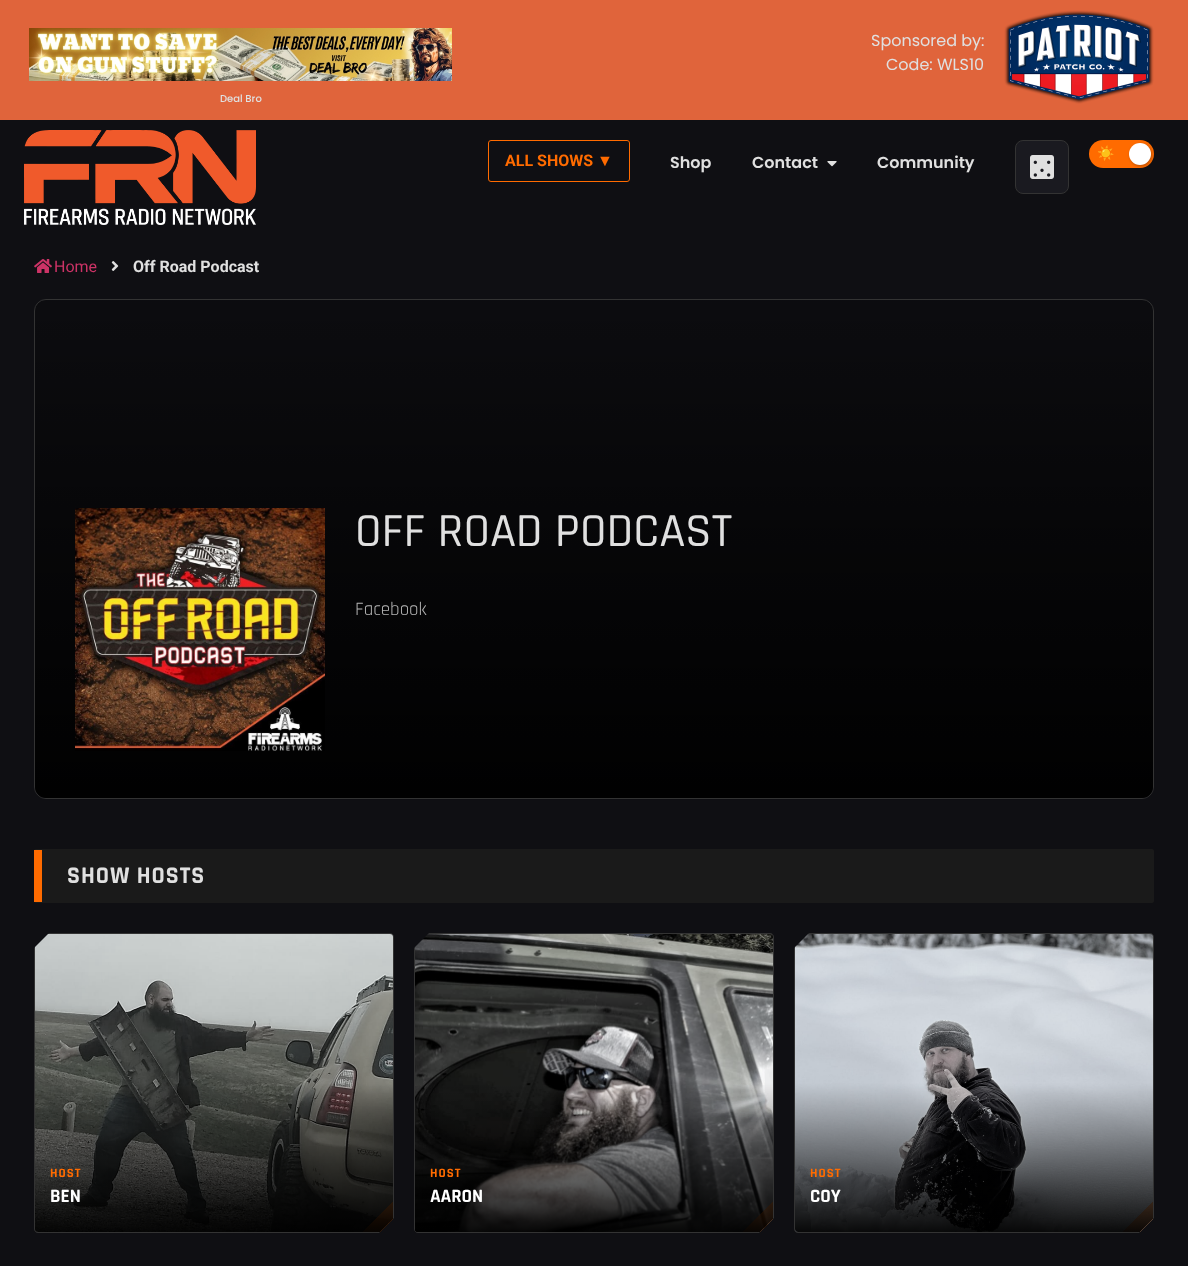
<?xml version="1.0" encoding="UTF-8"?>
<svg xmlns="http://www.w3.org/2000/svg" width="1188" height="1266">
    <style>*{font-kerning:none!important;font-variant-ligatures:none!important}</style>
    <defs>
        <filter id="blur1" x="-50%" y="-200%" width="200%" height="500%"><feGaussianBlur stdDeviation="1.5"/></filter>
        <linearGradient id="g1" gradientUnits="userSpaceOnUse" x1="594" y1="798" x2="594" y2="300"><stop offset="0" stop-color="#000000" stop-opacity="0.95"/><stop offset="0.5" stop-color="#000000" stop-opacity="0.6"/><stop offset="1" stop-color="#000000" stop-opacity="0.2"/></linearGradient>
        <linearGradient id="g2" gradientUnits="userSpaceOnUse" x1="363" y1="1202" x2="393" y2="1232"><stop offset="0.5" stop-color="#FF6B00" stop-opacity="0"/><stop offset="0.5" stop-color="#FF6B00" stop-opacity="0.5"/></linearGradient>
        <linearGradient id="g3" gradientUnits="userSpaceOnUse" x1="214" y1="1232" x2="214" y2="1083"><stop offset="0" stop-color="#000000" stop-opacity="0.95"/><stop offset="1" stop-color="#000000" stop-opacity="0"/></linearGradient>
        <linearGradient id="g4" gradientUnits="userSpaceOnUse" x1="743" y1="1202" x2="773" y2="1232"><stop offset="0.5" stop-color="#FF6B00" stop-opacity="0"/><stop offset="0.5" stop-color="#FF6B00" stop-opacity="0.5"/></linearGradient>
        <linearGradient id="g5" gradientUnits="userSpaceOnUse" x1="594" y1="1232" x2="594" y2="1083"><stop offset="0" stop-color="#000000" stop-opacity="0.95"/><stop offset="1" stop-color="#000000" stop-opacity="0"/></linearGradient>
        <linearGradient id="g6" gradientUnits="userSpaceOnUse" x1="1123" y1="1202" x2="1153" y2="1232"><stop offset="0.5" stop-color="#FF6B00" stop-opacity="0"/><stop offset="0.5" stop-color="#FF6B00" stop-opacity="0.5"/></linearGradient>
        <linearGradient id="g7" gradientUnits="userSpaceOnUse" x1="974" y1="1232" x2="974" y2="1083"><stop offset="0" stop-color="#000000" stop-opacity="0.95"/><stop offset="1" stop-color="#000000" stop-opacity="0"/></linearGradient>
    </defs>
    <rect width="100%" height="100%" fill="#0F0F13"/>
    <rect x="0" y="0" width="1188" height="120" fill="#E0643B"/>
    <text x="871" y="46" font-family="Poppins" font-size="16" fill="#E0E0E0">Sponsored by:</text>
    <text x="886" y="70" font-family="Poppins" font-size="16" fill="#E0E0E0">Code: WLS10</text>
    <image x="1004" y="10" width="150" height="94" href="img_01.png"/>
    <image x="29" y="28" width="423" height="53" href="img_02.png"/>
    <text x="220" y="102" font-family="Poppins" font-size="10" font-weight="500" fill="#E0E0E0">Deal Bro</text>
    <image x="24" y="130" width="232" height="95" href="img_03.png"/>
    <rect x="488.5" y="140.5" width="141" height="41" rx="2.5" fill="none" stroke="#FF6B00"/>
    <text x="505" y="166" font-family="Roboto" font-size="16" font-weight="700" fill="#FF6B00">ALL SHOWS</text>
    <text x="597" y="166" font-family="Liberation Sans" font-size="16" font-weight="700" fill="#FF6B00">▼</text>
    <text x="670" y="168" font-family="Poppins" font-size="16" font-weight="600" fill="#E0E0E0">Shop</text>
    <text x="752" y="168" font-family="Poppins" font-size="16" font-weight="600" fill="#E0E0E0">Contact</text>
    <image x="827" y="161" width="10" height="6" href="img_04.png"/>
    <text x="877" y="168" font-family="Poppins" font-size="16" font-weight="600" fill="#E0E0E0">Community</text>
    <rect x="1015.5" y="140.5" width="53" height="53" rx="7.5" fill="#1A1A20" stroke="#333333"/>
    <image x="1030" y="155" width="24" height="24" href="img_05.png"/>
    <rect x="1089" y="140" width="65" height="28" rx="14" fill="#FF6B00"/>
    <text x="1097" y="158" font-family="Noto Color Emoji" font-size="14" fill="#FFFFFF">☀</text>
    <rect x="1130" y="144" width="22" height="22" rx="11" fill="#000000" fill-opacity="0.3" filter="url(#blur1)"/>
    <circle cx="1140" cy="154" r="11" fill="#FFFFFF"/>
    <image x="34" y="259" width="18" height="14" href="img_06.png"/>
    <text x="54" y="272" font-family="Roboto" font-size="16" fill="#CC3366">Home</text>
    <image x="111" y="261" width="8" height="10" href="img_07.png"/>
    <text x="133" y="272" font-family="Roboto" font-size="16" font-weight="700" fill="#E0E0E0">Off Road Podcast</text>
    <rect x="34.5" y="299.5" width="1119" height="499" rx="11.5" fill="none" stroke="#333333"/>
    <rect x="35" y="300" width="1118" height="498" rx="11" fill="url(#g1)"/>
    <image x="75" y="508" width="250" height="243" href="img_08.png"/>
    <text x="355" y="546" font-family="Rajdhani" font-size="48" font-weight="500" fill="#E0E0E0">OFF ROAD PODCAST</text>
    <text x="355" y="615" font-family="Rajdhani" font-size="19" fill="#B4B4B4">Facebook</text>
    <rect x="34" y="849" width="1120" height="54" rx="2" fill="#1A1A1A"/>
    <rect x="34" y="850" width="8" height="52" fill="#FF6B00"/>
    <text x="67" y="883" font-family="Rajdhani" font-size="24" font-weight="700" letter-spacing="1" fill="#E0E0E0">SHOW HOSTS</text>
    <path d="M 34 948 V 1229 C 34 1231 36 1233 38 1233 H 379 L 380 1232 H 38 C 36 1232 35 1231 35 1229 V 947 Z M 49 933 L 48 934 H 390 C 392 934 393 935 393 937 V 1219 L 394 1218 V 937 C 394 935 392 933 390 933 Z" fill="#333333" fill-rule="evenodd"/>
    <image x="35" y="934" width="358" height="298" href="img_09.png"/>
    <path d="M 363 1202 H 393 V 1219 L 380 1232 H 363 Z" fill="url(#g2)"/>
    <path d="M 35 1083 H 393 V 1219 L 380 1232 H 38 C 36 1232 35 1231 35 1229 Z" fill="url(#g3)"/>
    <text x="50" y="1177" font-family="Rajdhani" font-size="13" font-weight="700" letter-spacing="1" fill="#FF6B00">HOST</text>
    <text x="50" y="1202" font-family="Rajdhani" font-size="19" font-weight="700" fill="#FFFFFF">BEN</text>
    <path d="M 414 948 V 1229 C 414 1231 416 1233 418 1233 H 759 L 760 1232 H 418 C 416 1232 415 1231 415 1229 V 947 Z M 429 933 L 428 934 H 770 C 772 934 773 935 773 937 V 1219 L 774 1218 V 937 C 774 935 772 933 770 933 Z" fill="#333333" fill-rule="evenodd"/>
    <image x="415" y="934" width="358" height="298" href="img_10.png"/>
    <path d="M 743 1202 H 773 V 1219 L 760 1232 H 743 Z" fill="url(#g4)"/>
    <path d="M 415 1083 H 773 V 1219 L 760 1232 H 418 C 416 1232 415 1231 415 1229 Z" fill="url(#g5)"/>
    <text x="430" y="1177" font-family="Rajdhani" font-size="13" font-weight="700" letter-spacing="1" fill="#FF6B00">HOST</text>
    <text x="430" y="1202" font-family="Rajdhani" font-size="19" font-weight="700" fill="#FFFFFF">AARON</text>
    <path d="M 794 948 V 1229 C 794 1231 796 1233 798 1233 H 1139 L 1140 1232 H 798 C 796 1232 795 1231 795 1229 V 947 Z M 809 933 L 808 934 H 1150 C 1152 934 1153 935 1153 937 V 1219 L 1154 1218 V 937 C 1154 935 1152 933 1150 933 Z" fill="#333333" fill-rule="evenodd"/>
    <image x="795" y="934" width="358" height="298" href="img_11.png"/>
    <path d="M 1123 1202 H 1153 V 1219 L 1140 1232 H 1123 Z" fill="url(#g6)"/>
    <path d="M 795 1083 H 1153 V 1219 L 1140 1232 H 798 C 796 1232 795 1231 795 1229 Z" fill="url(#g7)"/>
    <text x="810" y="1177" font-family="Rajdhani" font-size="13" font-weight="700" letter-spacing="1" fill="#FF6B00">HOST</text>
    <text x="810" y="1202" font-family="Rajdhani" font-size="19" font-weight="700" fill="#FFFFFF">COY</text>
</svg>
